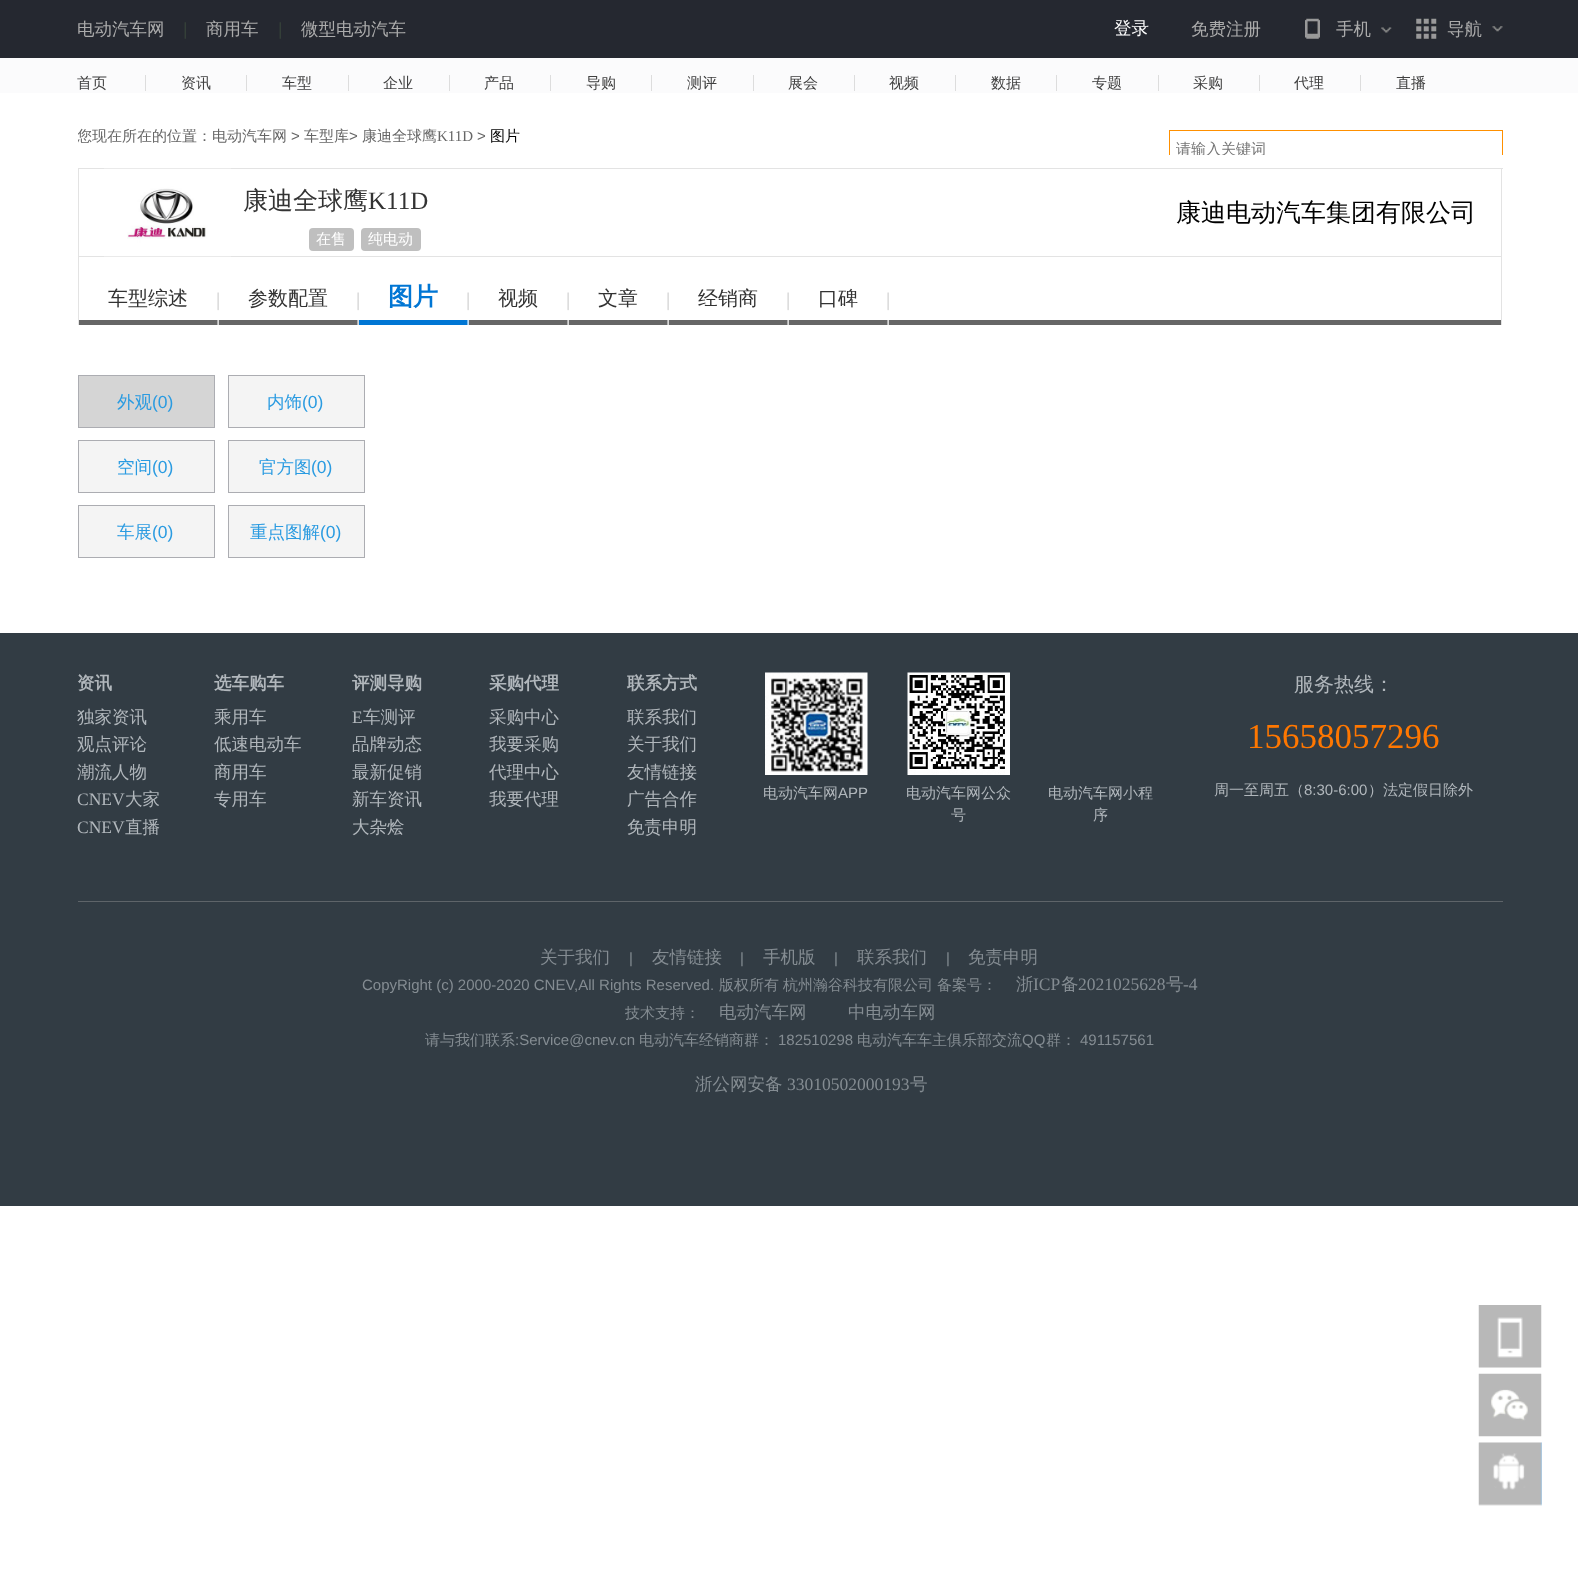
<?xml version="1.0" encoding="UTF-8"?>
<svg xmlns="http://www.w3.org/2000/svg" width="1578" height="1586">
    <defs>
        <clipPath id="clip1"><rect x="78" y="105" width="1425" height="50"/></clipPath>
        <clipPath id="clip2"><rect x="1176" y="139" width="325" height="16"/></clipPath>
    </defs>
    <rect width="100%" height="100%" fill="#FFFFFF"/>
    <rect x="0" y="0" width="1578" height="58" fill="#252830"/>
    <text x="77" y="35" font-family="WenQuanYi Zen Hei" font-size="17.5" font-weight="500" fill="#ABABAB">电动汽车网</text>
    <text x="183" y="35" font-family="Liberation Sans" font-size="17.5" fill="#354039">|</text>
    <text x="206" y="35" font-family="WenQuanYi Zen Hei" font-size="17.5" font-weight="500" fill="#ABABAB">商用车</text>
    <text x="278" y="35" font-family="Liberation Sans" font-size="17.5" fill="#354039">|</text>
    <text x="301" y="35" font-family="WenQuanYi Zen Hei" font-size="17.5" font-weight="500" fill="#ABABAB">微型电动汽车</text>
    <text x="1114" y="34" font-family="WenQuanYi Zen Hei" font-size="17.5" font-weight="500" fill="#FFFFFF">登录</text>
    <text x="1191" y="35" font-family="WenQuanYi Zen Hei" font-size="17.5" font-weight="500" fill="#ABABAB">免费注册</text>
    <image x="1381" y="27" width="11" height="6" href="img_01.png"/>
    <image x="1305" y="18" width="15" height="21" href="img_02.png"/>
    <text x="1336" y="35" font-family="WenQuanYi Zen Hei" font-size="17.5" font-weight="500" fill="#ABABAB">手机</text>
    <image x="1492" y="26" width="11" height="6" href="img_03.png"/>
    <image x="1416" y="18" width="21" height="21" href="img_04.png"/>
    <text x="1447" y="35" font-family="WenQuanYi Zen Hei" font-size="17.5" font-weight="500" fill="#ABABAB">导航</text>
    <rect x="0" y="58" width="1578" height="35" fill="#FBFBFC"/>
    <text x="77" y="88" font-family="WenQuanYi Zen Hei" font-size="15" font-weight="500" fill="#404040">首页</text>
    <rect x="145" y="75" width="1" height="16" fill="#DDDDDD"/>
    <text x="181" y="88" font-family="WenQuanYi Zen Hei" font-size="15" font-weight="500" fill="#404040">资讯</text>
    <rect x="246" y="75" width="1" height="16" fill="#DDDDDD"/>
    <text x="282" y="88" font-family="WenQuanYi Zen Hei" font-size="15" font-weight="500" fill="#404040">车型</text>
    <rect x="348" y="75" width="1" height="16" fill="#DDDDDD"/>
    <text x="383" y="88" font-family="WenQuanYi Zen Hei" font-size="15" font-weight="500" fill="#404040">企业</text>
    <rect x="449" y="75" width="1" height="16" fill="#DDDDDD"/>
    <text x="484" y="88" font-family="WenQuanYi Zen Hei" font-size="15" font-weight="500" fill="#404040">产品</text>
    <rect x="550" y="75" width="1" height="16" fill="#DDDDDD"/>
    <text x="586" y="88" font-family="WenQuanYi Zen Hei" font-size="15" font-weight="500" fill="#404040">导购</text>
    <rect x="651" y="75" width="1" height="16" fill="#DDDDDD"/>
    <text x="687" y="88" font-family="WenQuanYi Zen Hei" font-size="15" font-weight="500" fill="#404040">测评</text>
    <rect x="753" y="75" width="1" height="16" fill="#DDDDDD"/>
    <text x="788" y="88" font-family="WenQuanYi Zen Hei" font-size="15" font-weight="500" fill="#404040">展会</text>
    <rect x="854" y="75" width="1" height="16" fill="#DDDDDD"/>
    <text x="889" y="88" font-family="WenQuanYi Zen Hei" font-size="15" font-weight="500" fill="#404040">视频</text>
    <rect x="955" y="75" width="1" height="16" fill="#DDDDDD"/>
    <text x="991" y="88" font-family="WenQuanYi Zen Hei" font-size="15" font-weight="500" fill="#404040">数据</text>
    <rect x="1056" y="75" width="1" height="16" fill="#DDDDDD"/>
    <text x="1092" y="88" font-family="WenQuanYi Zen Hei" font-size="15" font-weight="500" fill="#404040">专题</text>
    <rect x="1158" y="75" width="1" height="16" fill="#DDDDDD"/>
    <text x="1193" y="88" font-family="WenQuanYi Zen Hei" font-size="15" font-weight="500" fill="#404040">采购</text>
    <rect x="1259" y="75" width="1" height="16" fill="#DDDDDD"/>
    <text x="1294" y="88" font-family="WenQuanYi Zen Hei" font-size="15" font-weight="500" fill="#404040">代理</text>
    <rect x="1360" y="75" width="1" height="16" fill="#DDDDDD"/>
    <text x="1396" y="88" font-family="WenQuanYi Zen Hei" font-size="15" font-weight="500" fill="#404040">直播</text>
    <g clip-path="url(#clip1)">
        <text x="77" y="141" font-family="WenQuanYi Zen Hei" font-size="15" font-weight="500" fill="#666666">您现在所在的位置：</text>
    </g>
    <text x="212" y="141" font-family="WenQuanYi Zen Hei" font-size="15" font-weight="500" fill="#666666">电动汽车网</text>
    <text x="291" y="141" font-family="Liberation Sans" font-size="15" fill="#666666">&gt;</text>
    <text x="304" y="141" font-family="WenQuanYi Zen Hei" font-size="15" font-weight="500" fill="#666666">车型库</text>
    <text x="349" y="141" font-family="Liberation Sans" font-size="15" fill="#666666">&gt;</text>
    <text x="362" y="141" font-family="WenQuanYi Zen Hei" font-size="15" font-weight="500" fill="#666666">康迪全球鹰</text>
    <text x="437" y="141" font-family="Liberation Serif" font-size="15" fill="#666666">K11D</text>
    <text x="477" y="141" font-family="Liberation Sans" font-size="15" fill="#666666">&gt;</text>
    <text x="490" y="141" font-family="WenQuanYi Zen Hei" font-size="15" font-weight="500" fill="#000000">图片</text>
    <g clip-path="url(#clip1)">
        <rect x="1169.5" y="130.5" width="333" height="37" fill="none" stroke="#FF9000"/>
    </g>
    <g clip-path="url(#clip2)">
        <text x="1176" y="154" font-family="WenQuanYi Zen Hei" font-size="15" font-weight="500" fill="#757575">请输入关键词</text>
    </g>
    <rect x="78" y="168" width="1425" height="1" fill="#E3E3E3"/>
    <rect x="1501" y="168" width="1" height="157" fill="#E3E3E3"/>
    <rect x="78" y="168" width="1" height="157" fill="#E3E3E3"/>
    <rect x="79" y="256" width="1422" height="1" fill="#E3E3E3"/>
    <image x="104" y="168" width="127" height="89" href="img_05.png"/>
    <text x="243" y="209" font-family="WenQuanYi Zen Hei" font-size="25" font-weight="500" fill="#333333">康迪全球鹰</text>
    <text x="368" y="209" font-family="Liberation Serif" font-size="25" fill="#333333">K11D</text>
    <rect x="309" y="228" width="45" height="23" rx="4" fill="#BFBFBF"/>
    <text x="316" y="244" font-family="WenQuanYi Zen Hei" font-size="15" font-weight="500" fill="#FFFFFF">在售</text>
    <rect x="361" y="228" width="60" height="23" rx="4" fill="#BFBFBF"/>
    <text x="368" y="244" font-family="WenQuanYi Zen Hei" font-size="15" font-weight="500" fill="#FFFFFF">纯电动</text>
    <text x="1176" y="221" font-family="WenQuanYi Zen Hei" font-size="25" font-weight="500" fill="#000000">康迪电动汽车集团有限公司</text>
    <rect x="79" y="320" width="1422" height="5" fill="#666666"/>
    <text x="108" y="305" font-family="WenQuanYi Zen Hei" font-size="20" font-weight="500" fill="#333333">车型综述</text>
    <image x="217" y="292" width="2" height="33" href="img_06.png"/>
    <text x="248" y="305" font-family="WenQuanYi Zen Hei" font-size="20" font-weight="500" fill="#333333">参数配置</text>
    <image x="357" y="292" width="2" height="33" href="img_06.png"/>
    <rect x="359" y="320" width="110" height="5" fill="#0076D4"/>
    <text x="388" y="305" font-family="WenQuanYi Zen Hei" font-size="25" font-weight="700" fill="#0076D4">图片</text>
    <image x="467" y="292" width="2" height="33" href="img_07.png"/>
    <text x="498" y="305" font-family="WenQuanYi Zen Hei" font-size="20" font-weight="500" fill="#333333">视频</text>
    <image x="567" y="292" width="2" height="33" href="img_06.png"/>
    <text x="598" y="305" font-family="WenQuanYi Zen Hei" font-size="20" font-weight="500" fill="#333333">文章</text>
    <image x="667" y="292" width="2" height="33" href="img_06.png"/>
    <text x="698" y="305" font-family="WenQuanYi Zen Hei" font-size="20" font-weight="500" fill="#333333">经销商</text>
    <image x="787" y="292" width="2" height="33" href="img_06.png"/>
    <text x="818" y="305" font-family="WenQuanYi Zen Hei" font-size="20" font-weight="500" fill="#333333">口碑</text>
    <image x="887" y="292" width="2" height="33" href="img_06.png"/>
    <rect x="78.5" y="375.5" width="136" height="52" fill="#D5D5D5" stroke="#ACADB2"/>
    <text x="117" y="408" font-family="WenQuanYi Zen Hei" font-size="17.5" font-weight="500" fill="#2A9BE1">外观</text>
    <text x="152" y="408" font-family="Liberation Sans" font-size="17.5" fill="#2A9BE1">(0)</text>
    <rect x="228.5" y="375.5" width="136" height="52" fill="#F4F4F4" stroke="#ACADB2"/>
    <text x="267" y="408" font-family="WenQuanYi Zen Hei" font-size="17.5" font-weight="500" fill="#2A9BE1">内饰</text>
    <text x="302" y="408" font-family="Liberation Sans" font-size="17.5" fill="#2A9BE1">(0)</text>
    <rect x="78.5" y="440.5" width="136" height="52" fill="#F4F4F4" stroke="#ACADB2"/>
    <text x="117" y="473" font-family="WenQuanYi Zen Hei" font-size="17.5" font-weight="500" fill="#2A9BE1">空间</text>
    <text x="152" y="473" font-family="Liberation Sans" font-size="17.5" fill="#2A9BE1">(0)</text>
    <rect x="228.5" y="440.5" width="136" height="52" fill="#F4F4F4" stroke="#ACADB2"/>
    <text x="259" y="473" font-family="WenQuanYi Zen Hei" font-size="17.5" font-weight="500" fill="#2A9BE1">官方图</text>
    <text x="311" y="473" font-family="Liberation Sans" font-size="17.5" fill="#2A9BE1">(0)</text>
    <rect x="78.5" y="505.5" width="136" height="52" fill="#F4F4F4" stroke="#ACADB2"/>
    <text x="117" y="538" font-family="WenQuanYi Zen Hei" font-size="17.5" font-weight="500" fill="#2A9BE1">车展</text>
    <text x="152" y="538" font-family="Liberation Sans" font-size="17.5" fill="#2A9BE1">(0)</text>
    <rect x="228.5" y="505.5" width="136" height="52" fill="#F4F4F4" stroke="#ACADB2"/>
    <text x="250" y="538" font-family="WenQuanYi Zen Hei" font-size="17.5" font-weight="500" fill="#2A9BE1">重点图解</text>
    <text x="320" y="538" font-family="Liberation Sans" font-size="17.5" fill="#2A9BE1">(0)</text>
    <rect x="0" y="633" width="1578" height="573" fill="#323C44"/>
    <rect x="78" y="901" width="1425" height="1" fill="#5E6469"/>
    <text x="77" y="689" font-family="WenQuanYi Zen Hei" font-size="17.5" font-weight="700" fill="#B1B7BC">资讯</text>
    <text font-family="WenQuanYi Zen Hei" font-size="17.5" font-weight="500" fill="#B1B7BC">
        <tspan x="77" y="723">独家资讯</tspan>
        <tspan x="77" y="750">观点评论</tspan>
        <tspan x="77" y="778">潮流人物</tspan>
    </text>
    <text x="77" y="805" font-family="Liberation Serif" font-size="17.5" fill="#B1B7BC">CNEV</text>
    <text x="125" y="805" font-family="WenQuanYi Zen Hei" font-size="17.5" font-weight="500" fill="#B1B7BC">大家</text>
    <text x="77" y="833" font-family="Liberation Serif" font-size="17.5" fill="#B1B7BC">CNEV</text>
    <text x="125" y="833" font-family="WenQuanYi Zen Hei" font-size="17.5" font-weight="500" fill="#B1B7BC">直播</text>
    <text x="214" y="689" font-family="WenQuanYi Zen Hei" font-size="17.5" font-weight="700" fill="#B1B7BC">选车购车</text>
    <text font-family="WenQuanYi Zen Hei" font-size="17.5" font-weight="500" fill="#B1B7BC">
        <tspan x="214" y="723">乘用车</tspan>
        <tspan x="214" y="750">低速电动车</tspan>
        <tspan x="214" y="778">商用车</tspan>
        <tspan x="214" y="805">专用车</tspan>
    </text>
    <text x="352" y="689" font-family="WenQuanYi Zen Hei" font-size="17.5" font-weight="700" fill="#B1B7BC">评测导购</text>
    <text x="352" y="723" font-family="Liberation Serif" font-size="17.5" fill="#B1B7BC">E</text>
    <text x="363" y="723" font-family="WenQuanYi Zen Hei" font-size="17.5" font-weight="500" fill="#B1B7BC">车测评</text>
    <text font-family="WenQuanYi Zen Hei" font-size="17.5" font-weight="500" fill="#B1B7BC">
        <tspan x="352" y="750">品牌动态</tspan>
        <tspan x="352" y="778">最新促销</tspan>
        <tspan x="352" y="805">新车资讯</tspan>
        <tspan x="352" y="833">大杂烩</tspan>
    </text>
    <text x="489" y="689" font-family="WenQuanYi Zen Hei" font-size="17.5" font-weight="700" fill="#B1B7BC">采购代理</text>
    <text font-family="WenQuanYi Zen Hei" font-size="17.5" font-weight="500" fill="#B1B7BC">
        <tspan x="489" y="723">采购中心</tspan>
        <tspan x="489" y="750">我要采购</tspan>
        <tspan x="489" y="778">代理中心</tspan>
        <tspan x="489" y="805">我要代理</tspan>
    </text>
    <text x="627" y="689" font-family="WenQuanYi Zen Hei" font-size="17.5" font-weight="700" fill="#B1B7BC">联系方式</text>
    <text font-family="WenQuanYi Zen Hei" font-size="17.5" font-weight="500" fill="#B1B7BC">
        <tspan x="627" y="723">联系我们</tspan>
        <tspan x="627" y="750">关于我们</tspan>
        <tspan x="627" y="778">友情链接</tspan>
        <tspan x="627" y="805">广告合作</tspan>
        <tspan x="627" y="833">免责申明</tspan>
    </text>
    <text x="1294" y="691" font-family="WenQuanYi Zen Hei" font-size="20" font-weight="500" fill="#B1B7BC">服务热线：</text>
    <text x="1247" y="748" font-family="Liberation Serif" font-size="35" fill="#FF7700">15658057296</text>
    <text x="1214" y="795" font-family="WenQuanYi Zen Hei" font-size="15" font-weight="500" fill="#B1B7BC">周一至周五（</text>
    <text x="1304" y="795" font-family="Liberation Sans" font-size="15" fill="#B1B7BC">8:30-6:00</text>
    <text x="1368" y="795" font-family="WenQuanYi Zen Hei" font-size="15" font-weight="500" fill="#B1B7BC">）法定假日除外</text>
    <image x="765" y="672" width="103" height="103" href="img_08.png"/>
    <text x="763" y="798" font-family="WenQuanYi Zen Hei" font-size="15" font-weight="500" fill="#B1B7BC">电动汽车网</text>
    <text x="838" y="798" font-family="Liberation Sans" font-size="15" fill="#B1B7BC">APP</text>
    <image x="907" y="672" width="103" height="103" href="img_09.png"/>
    <text x="906" y="798" font-family="WenQuanYi Zen Hei" font-size="15" font-weight="500" fill="#B1B7BC">电动汽车网公众</text>
    <text x="951" y="820" font-family="WenQuanYi Zen Hei" font-size="15" font-weight="500" fill="#B1B7BC">号</text>
    <text x="1048" y="798" font-family="WenQuanYi Zen Hei" font-size="15" font-weight="500" fill="#B1B7BC">电动汽车网小程</text>
    <text x="1093" y="820" font-family="WenQuanYi Zen Hei" font-size="15" font-weight="500" fill="#B1B7BC">序</text>
    <text x="540" y="963" font-family="WenQuanYi Zen Hei" font-size="17.5" font-weight="500" fill="#848C92">关于我们</text>
    <text x="629" y="963" font-family="Liberation Sans" font-size="15" fill="#848C92">|</text>
    <text x="652" y="963" font-family="WenQuanYi Zen Hei" font-size="17.5" font-weight="500" fill="#848C92">友情链接</text>
    <text x="740" y="963" font-family="Liberation Sans" font-size="15" fill="#848C92">|</text>
    <text x="763" y="963" font-family="WenQuanYi Zen Hei" font-size="17.5" font-weight="500" fill="#848C92">手机版</text>
    <text x="834" y="963" font-family="Liberation Sans" font-size="15" fill="#848C92">|</text>
    <text x="857" y="963" font-family="WenQuanYi Zen Hei" font-size="17.5" font-weight="500" fill="#848C92">联系我们</text>
    <text x="946" y="963" font-family="Liberation Sans" font-size="15" fill="#848C92">|</text>
    <text x="968" y="963" font-family="WenQuanYi Zen Hei" font-size="17.5" font-weight="500" fill="#848C92">免责申明</text>
    <text x="362" y="990" font-family="Liberation Sans" font-size="15" fill="#848C92">CopyRight (c) 2000-2020 CNEV,All Rights Reserved.</text>
    <text x="719" y="990" font-family="WenQuanYi Zen Hei" font-size="15" font-weight="500" fill="#848C92">版权所有</text>
    <text x="783" y="990" font-family="WenQuanYi Zen Hei" font-size="15" font-weight="500" fill="#848C92">杭州瀚谷科技有限公司</text>
    <text x="937" y="990" font-family="WenQuanYi Zen Hei" font-size="15" font-weight="500" fill="#848C92">备案号：</text>
    <text x="1016" y="990" font-family="WenQuanYi Zen Hei" font-size="17.5" font-weight="500" fill="#848C92">浙</text>
    <text x="1033" y="990" font-family="Liberation Serif" font-size="17.5" fill="#848C92">ICP</text>
    <text x="1061" y="990" font-family="WenQuanYi Zen Hei" font-size="17.5" font-weight="500" fill="#848C92">备</text>
    <text x="1078" y="990" font-family="Liberation Serif" font-size="17.5" fill="#848C92">2021025628</text>
    <text x="1166" y="990" font-family="WenQuanYi Zen Hei" font-size="17.5" font-weight="500" fill="#848C92">号</text>
    <text x="1183" y="990" font-family="Liberation Serif" font-size="17.5" fill="#848C92">-4</text>
    <text x="625" y="1018" font-family="WenQuanYi Zen Hei" font-size="15" font-weight="500" fill="#848C92">技术支持：</text>
    <text x="719" y="1018" font-family="WenQuanYi Zen Hei" font-size="17.5" font-weight="500" fill="#848C92">电动汽车网</text>
    <text x="848" y="1018" font-family="WenQuanYi Zen Hei" font-size="17.5" font-weight="500" fill="#848C92">中电动车网</text>
    <text x="425" y="1045" font-family="WenQuanYi Zen Hei" font-size="15" font-weight="500" fill="#848C92">请与我们联系</text>
    <text x="515" y="1045" font-family="Liberation Sans" font-size="15" fill="#848C92">:Service@cnev.cn</text>
    <text x="639" y="1045" font-family="WenQuanYi Zen Hei" font-size="15" font-weight="500" fill="#848C92">电动汽车经销商群：</text>
    <text x="778" y="1045" font-family="Liberation Sans" font-size="15" fill="#848C92">182510298</text>
    <text x="857" y="1045" font-family="WenQuanYi Zen Hei" font-size="15" font-weight="500" fill="#848C92">电动汽车车主俱乐部交流</text>
    <text x="1022" y="1045" font-family="Liberation Sans" font-size="15" fill="#848C92">QQ</text>
    <text x="1046" y="1045" font-family="WenQuanYi Zen Hei" font-size="15" font-weight="500" fill="#848C92">群：</text>
    <text x="1080" y="1045" font-family="Liberation Sans" font-size="15" fill="#848C92">491157561</text>
    <text x="695" y="1090" font-family="WenQuanYi Zen Hei" font-size="17.5" font-weight="500" fill="#848C92">浙公网安备</text>
    <text x="787" y="1090" font-family="Liberation Serif" font-size="17.5" fill="#848C92">33010502000193</text>
    <text x="910" y="1090" font-family="WenQuanYi Zen Hei" font-size="17.5" font-weight="500" fill="#848C92">号</text>
    <image x="1478" y="1305" width="64" height="63" href="img_13.png"/>
    <image x="1478" y="1305" width="64" height="63" href="img_10.png"/>
    <image x="1478" y="1373" width="64" height="64" href="img_14.png"/>
    <image x="1478" y="1373" width="64" height="64" href="img_11.png"/>
    <image x="1478" y="1442" width="64" height="64" href="img_15.png"/>
    <image x="1478" y="1442" width="64" height="64" href="img_12.png"/>
</svg>
